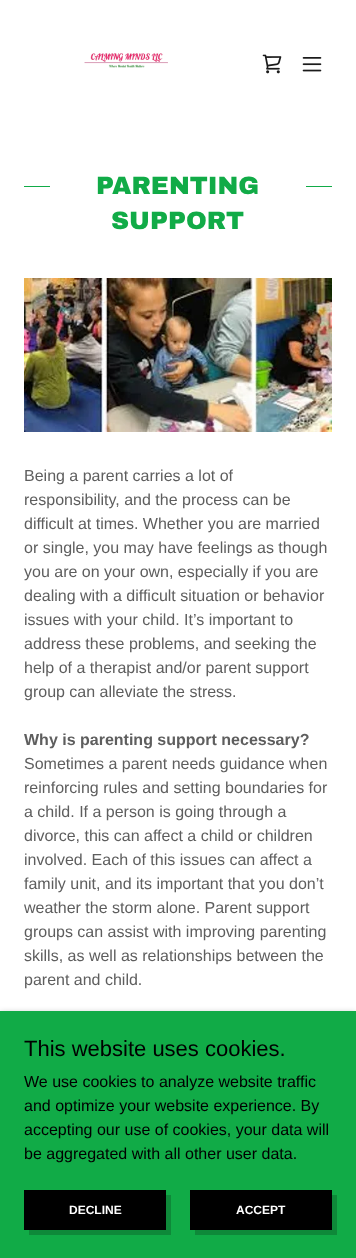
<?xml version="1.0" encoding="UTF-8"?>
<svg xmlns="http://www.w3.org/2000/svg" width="356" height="1258">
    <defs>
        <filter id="blur1" x="-50%" y="-200%" width="200%" height="500%"><feGaussianBlur stdDeviation="3"/></filter>
    </defs>
    <rect width="100%" height="100%" fill="#FFFFFF"/>
    <image x="84" y="53" width="84" height="15" href="img_01.png"/>
    <image x="262" y="54" width="20" height="20" href="img_02.png"/>
    <image x="302" y="57" width="20" height="15" href="img_03.png"/>
    <rect x="24" y="186" width="26" height="1" fill="#11AB47"/>
    <text x="96" y="194" font-family="Archivo Black" font-size="25" font-weight="900" fill="#11AB47">PARENTING</text>
    <rect x="306" y="186" width="26" height="1" fill="#11AB47"/>
    <text x="111" y="229" font-family="Archivo Black" font-size="25" font-weight="900" fill="#11AB47">SUPPORT</text>
    <image x="24" y="278" width="308" height="154" href="img_04.png"/>
    <text font-family="Liberation Sans" font-size="16" fill="#5E5E5E">
        <tspan x="24" y="481">Being a parent carries a lot of</tspan>
        <tspan x="24" y="505">responsibility, and the process can be</tspan>
        <tspan x="24" y="529">difficult at times. Whether you are married</tspan>
        <tspan x="24" y="553">or single, you may have feelings as though</tspan>
        <tspan x="24" y="577">you are on your own, especially if you are</tspan>
        <tspan x="24" y="601">dealing with a difficult situation or behavior</tspan>
        <tspan x="24" y="625">issues with your child. It’s important to</tspan>
        <tspan x="24" y="649">address these problems, and seeking the</tspan>
        <tspan x="24" y="673">help of a therapist and/or parent support</tspan>
        <tspan x="24" y="697">group can alleviate the stress.</tspan>
    </text>
    <text x="24" y="745" font-family="Liberation Sans" font-size="16" font-weight="700" fill="#5E5E5E">Why is parenting support necessary?</text>
    <text font-family="Liberation Sans" font-size="16" fill="#5E5E5E">
        <tspan x="24" y="769">Sometimes a parent needs guidance when</tspan>
        <tspan x="24" y="793">reinforcing rules and setting boundaries for</tspan>
        <tspan x="24" y="817">a child. If a person is going through a</tspan>
        <tspan x="24" y="841">divorce, this can affect a child or children</tspan>
        <tspan x="24" y="865">involved. Each of this issues can affect a</tspan>
        <tspan x="24" y="889">family unit, and its important that you don’t</tspan>
        <tspan x="24" y="913">weather the storm alone. Parent support</tspan>
        <tspan x="24" y="937">groups can assist with improving parenting</tspan>
        <tspan x="24" y="961">skills, as well as relationships between the</tspan>
        <tspan x="24" y="985">parent and child.</tspan>
    </text>
    <rect x="0" y="1013" width="356" height="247" fill="#000000" fill-opacity="0.3" filter="url(#blur1)"/>
    <rect x="0" y="1011" width="356" height="247" fill="#11AB47"/>
    <text x="24" y="1056" font-family="Liberation Sans" font-size="22" fill="#000000">This website uses cookies.</text>
    <text font-family="Liberation Sans" font-size="16" fill="#000000">
        <tspan x="24" y="1087">We use cookies to analyze website traffic</tspan>
        <tspan x="24" y="1111">and optimize your website experience. By</tspan>
        <tspan x="24" y="1135">accepting our use of cookies, your data will</tspan>
        <tspan x="24" y="1159">be aggregated with all other user data.</tspan>
    </text>
    <rect x="24" y="1190" width="142" height="40" fill="#000000"/>
    <path d="M 29 1230 V 1235 H 171 V 1195 H 166 V 1230 Z" fill="#0E8939"/>
    <text x="69" y="1214" font-family="Liberation Sans" font-size="12" font-weight="700" fill="#FFFFFF">DECLINE</text>
    <rect x="190" y="1190" width="142" height="40" fill="#000000"/>
    <path d="M 195 1230 V 1235 H 337 V 1195 H 332 V 1230 Z" fill="#0E8939"/>
    <text x="236" y="1214" font-family="Liberation Sans" font-size="12" font-weight="700" fill="#FFFFFF">ACCEPT</text>
</svg>
